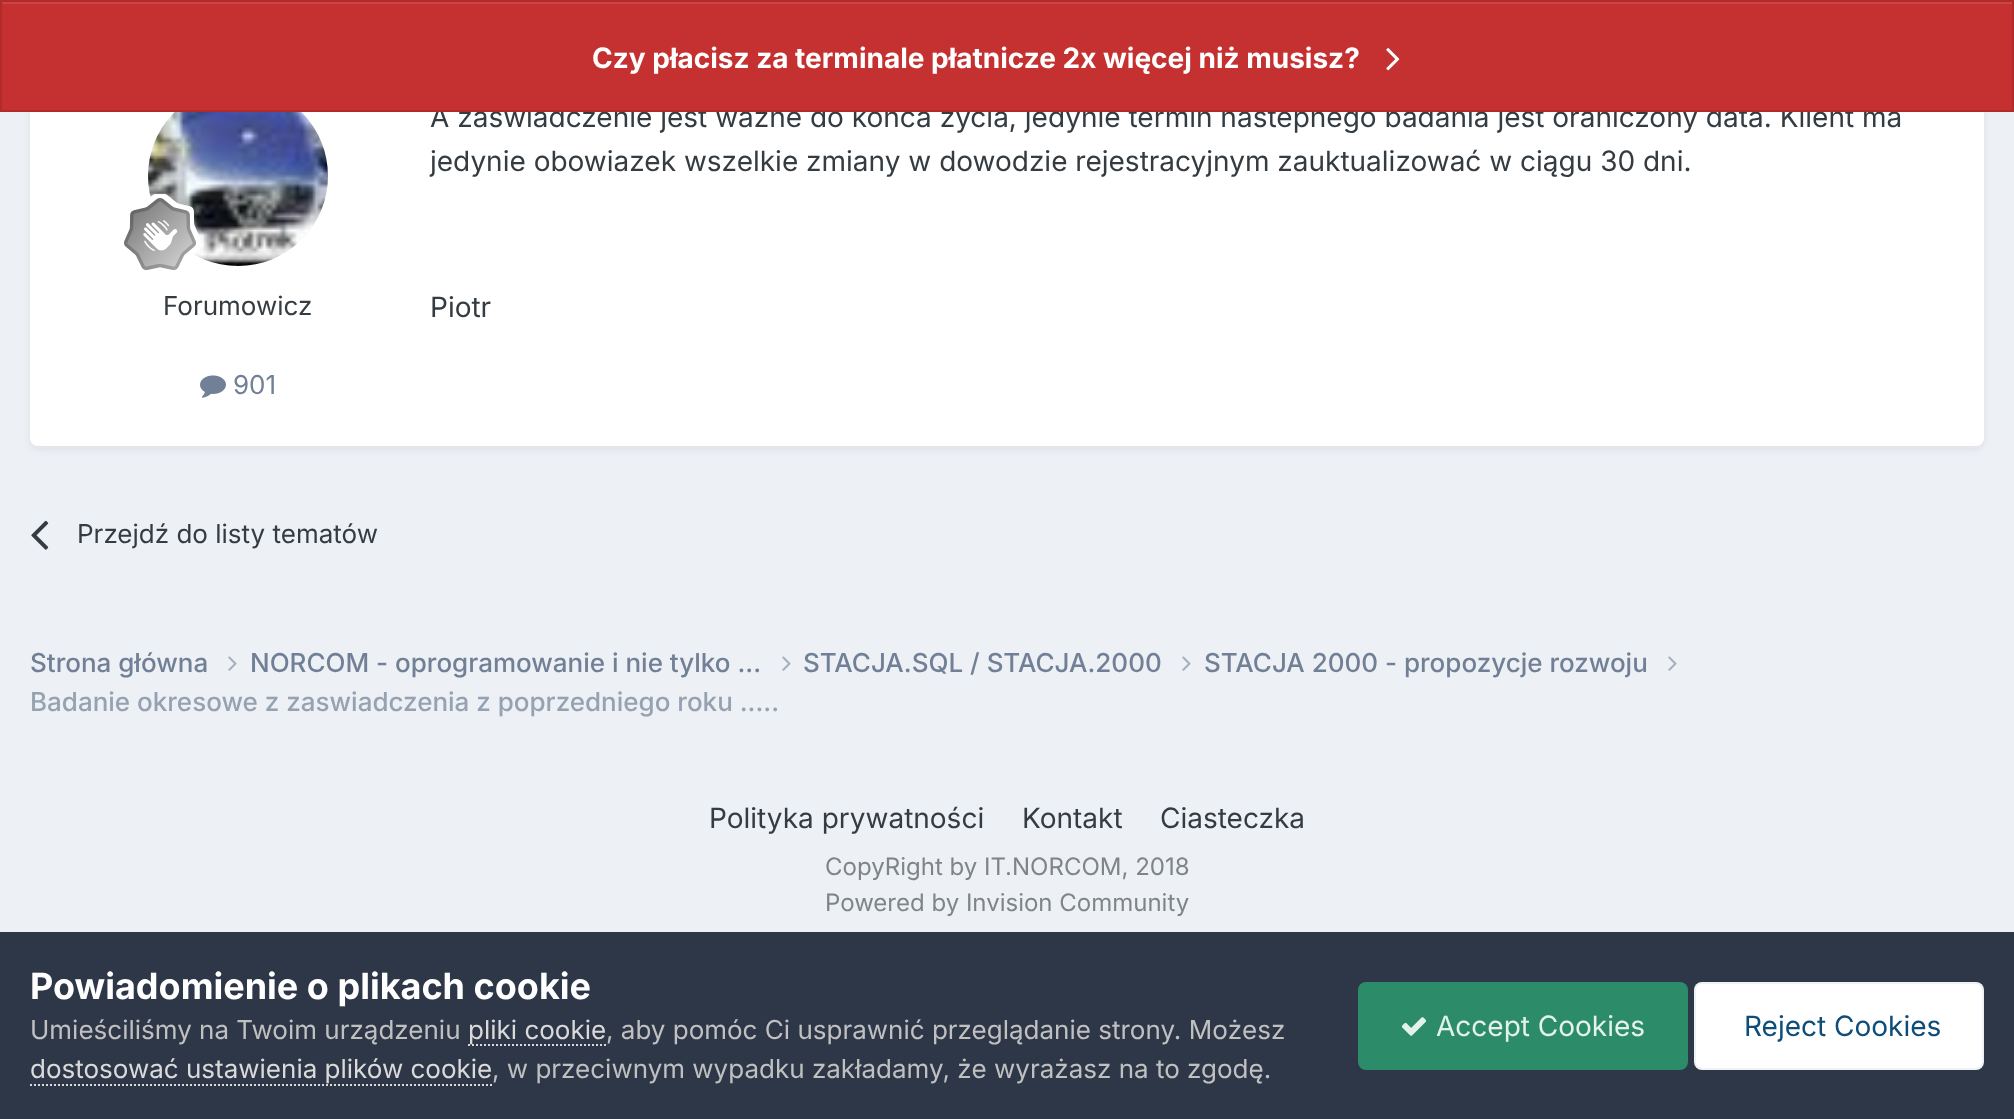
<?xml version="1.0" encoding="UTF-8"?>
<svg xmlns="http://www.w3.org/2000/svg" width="2014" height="1119">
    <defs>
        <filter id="blur1" x="-50%" y="-200%" width="200%" height="500%"><feGaussianBlur stdDeviation="4"/></filter>
    </defs>
    <rect width="100%" height="100%" fill="#EDF0F4"/>
    <rect x="32" y="-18" width="1950" height="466" rx="6" fill="#2D3748" fill-opacity="0.1" filter="url(#blur1)"/>
    <rect x="30" y="-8" width="1954" height="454" rx="8" fill="#FFFFFF"/>
    <text x="430" y="127" font-family="Inter" font-size="28" fill="#353C41">A zaswiadczenie jest ważne do konca zycia, jedynie termin nastepnego badania jest oraniczony data. Klient ma</text>
    <rect x="2" y="4" width="2010" height="106" fill="#C53030"/>
    <rect x="2" y="2" width="2010" height="2" fill="#CB4545"/>
    <rect x="1" y="1" width="2012" height="110" fill="none" stroke="#B12B2B" stroke-width="2"/>
    <text x="592" y="68" font-family="Inter" font-size="28" font-weight="700" fill="#FFFFFF">Czy płacisz za terminale płatnicze 2x więcej niż musisz?</text>
    <image x="1386" y="48" width="14" height="23" href="img_01.png"/>
    <text x="430" y="171" font-family="Inter" font-size="28" fill="#353C41">jedynie obowiazek wszelkie zmiany w dowodzie rejestracyjnym zauktualizować w ciągu 30 dni.</text>
    <text x="430" y="317" font-family="Inter" font-size="28" fill="#353C41">Piotr</text>
    <image x="148" y="112" width="180" height="154" href="img_02.png"/>
    <image x="124" y="194" width="76" height="76" href="img_03.png"/>
    <text x="163" y="315" font-family="Inter" font-size="26" fill="#353C41">Forumowicz</text>
    <image x="200" y="375" width="26" height="23" href="img_04.png"/>
    <text x="233" y="394" font-family="Inter" font-size="26" fill="#718096">901</text>
    <image x="31" y="520" width="18" height="30" href="img_05.png"/>
    <text x="77" y="543" font-family="Inter" font-size="26" fill="#353C41">Przejdź do listy tematów</text>
    <text x="30" y="672" font-family="Inter" font-size="26" font-weight="500" fill="#718096">Strona główna</text>
    <image x="228" y="656" width="9" height="15" href="img_06.png"/>
    <text x="250" y="672" font-family="Inter" font-size="26" font-weight="500" fill="#718096">NORCOM - oprogramowanie i nie tylko ...</text>
    <image x="782" y="656" width="9" height="15" href="img_06.png"/>
    <text x="803" y="672" font-family="Inter" font-size="26" font-weight="500" fill="#718096">STACJA.SQL / STACJA.2000</text>
    <image x="1182" y="656" width="9" height="15" href="img_06.png"/>
    <text x="1204" y="672" font-family="Inter" font-size="26" font-weight="500" fill="#718096">STACJA 2000 - propozycje rozwoju</text>
    <image x="1668" y="656" width="9" height="15" href="img_06.png"/>
    <text x="30" y="711" font-family="Inter" font-size="26" font-weight="500" fill="#96A2B2">Badanie okresowe z zaswiadczenia z poprzedniego roku .....</text>
    <text x="709" y="828" font-family="Inter" font-size="28" fill="#353C41">Polityka prywatności</text>
    <text x="1022" y="828" font-family="Inter" font-size="28" fill="#353C41">Kontakt</text>
    <text x="1160" y="828" font-family="Inter" font-size="28" fill="#353C41">Ciasteczka</text>
    <text font-family="Inter" font-size="24" fill="#7F8489">
        <tspan x="825" y="875">CopyRight by IT.NORCOM, 2018</tspan>
        <tspan x="825" y="911">Powered by Invision Community</tspan>
    </text>
    <rect x="0" y="932" width="2014" height="187" fill="#2D3748"/>
    <text x="30" y="999" font-family="Inter" font-size="36" font-weight="700" fill="#FFFFFF">Powiadomienie o plikach cookie</text>
    <text x="30" y="1039" font-family="Inter" font-size="26" fill="#C0C0C0">Umieściliśmy na Twoim urządzeniu</text>
    <path d="M 468 1045 H 606" fill="none" stroke="#DADADA" stroke-width="2" stroke-dasharray="2 2"/>
    <text x="468" y="1039" font-family="Inter" font-size="26" fill="#DADADA">pliki cookie</text>
    <text x="606" y="1039" font-family="Inter" font-size="26" fill="#C0C0C0">, aby pomóc Ci usprawnić przeglądanie strony. Możesz</text>
    <text x="30" y="1078" font-family="Inter" font-size="26" fill="#DADADA">dostosować ustawienia plików cookie</text>
    <path d="M 30 1085 H 492" fill="none" stroke="#DADADA" stroke-width="2" stroke-dasharray="2 2"/>
    <text x="492" y="1078" font-family="Inter" font-size="26" fill="#C0C0C0">, w przeciwnym wypadku zakładamy, że wyrażasz na to zgodę.</text>
    <rect x="1358" y="982" width="330" height="88" rx="8" fill="#2C8C69"/>
    <image x="1401" y="1017" width="26" height="19" href="img_07.png"/>
    <text x="1436" y="1036" font-family="Inter" font-size="28" fill="#E3F3EC">Accept Cookies</text>
    <rect x="1694" y="982" width="290" height="88" rx="8" fill="#FFFFFF"/>
    <rect x="1695" y="983" width="288" height="86" rx="7" fill="none" stroke="#0E4C79" stroke-opacity="0.07" stroke-width="2"/>
    <text x="1744" y="1036" font-family="Inter" font-size="28" fill="#0E4C79">Reject Cookies</text>
</svg>
